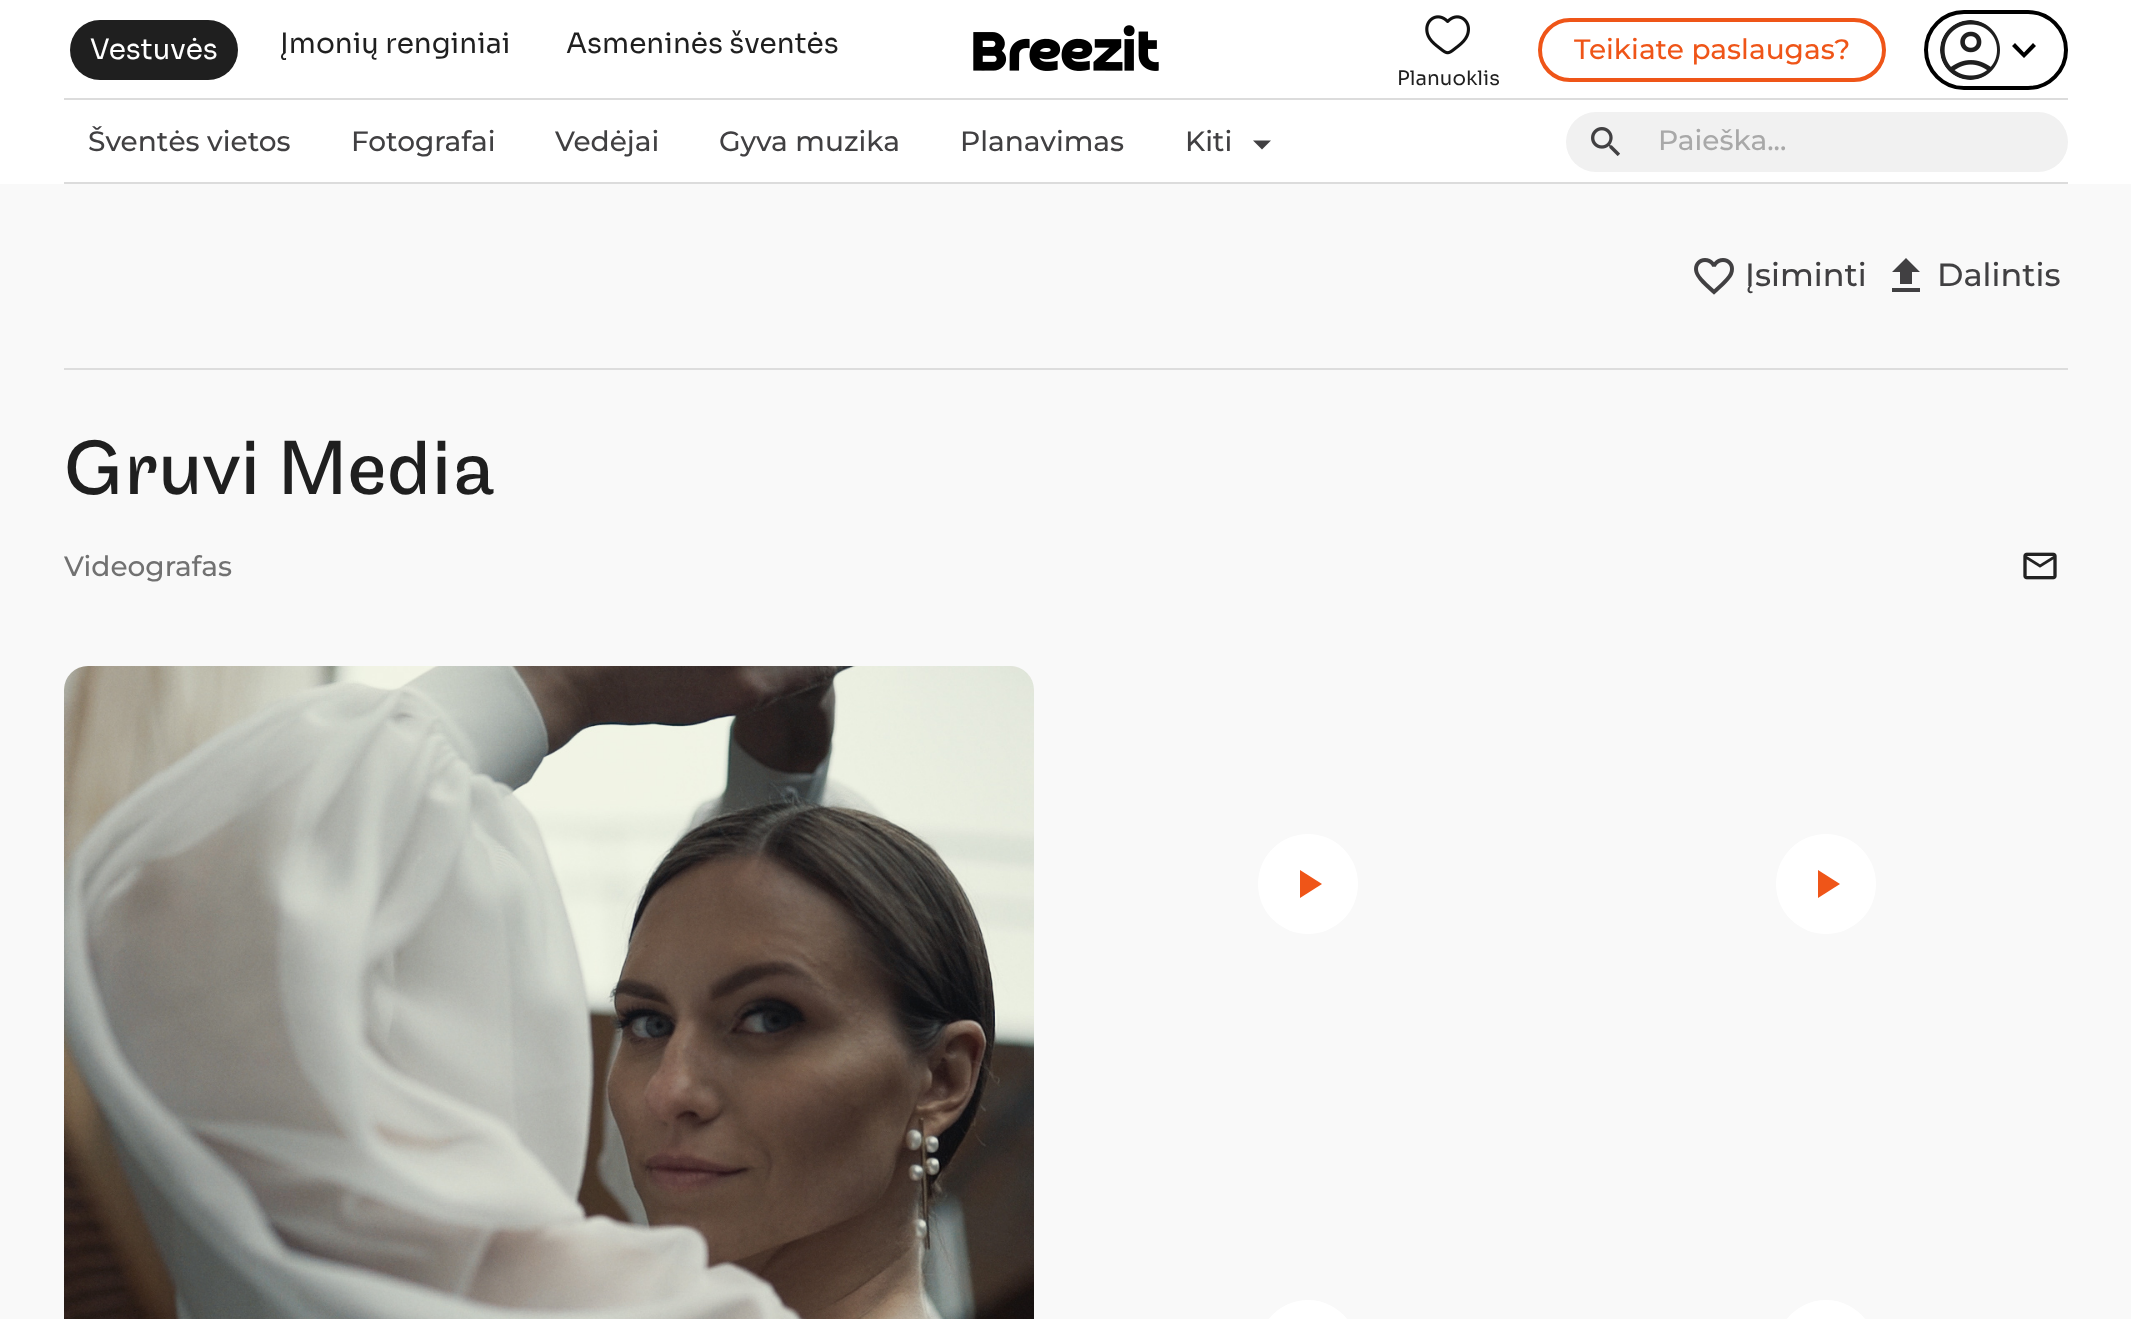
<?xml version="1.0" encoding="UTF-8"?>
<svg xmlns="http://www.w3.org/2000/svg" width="2131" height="1319">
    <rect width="100%" height="100%" fill="#FFFFFF"/>
    <rect x="64" y="98" width="2004" height="2" fill="#DCDCDC"/>
    <rect x="70" y="20" width="168" height="60" rx="30" fill="#1F1F1F"/>
    <text x="90" y="59" font-family="Sora" font-size="28" fill="#FFFFFF">Vestuvės</text>
    <text x="280" y="53" font-family="Sora" font-size="28" fill="#1F1F1F">Įmonių renginiai</text>
    <text x="566" y="53" font-family="Sora" font-size="28" fill="#1F1F1F">Asmeninės šventės</text>
    <image x="973" y="25" width="186" height="46" href="img_01.png"/>
    <rect x="1540" y="20" width="344" height="60" rx="30" fill="none" stroke="#EF5518" stroke-width="4"/>
    <text x="1574" y="59" font-family="Montserrat" font-size="28" font-weight="500" fill="#EF5518">Teikiate paslaugas?</text>
    <rect x="1926" y="12" width="140" height="76" rx="38" fill="none" stroke="#000000" stroke-width="4"/>
    <image x="1940" y="20" width="60" height="60" href="img_02.png"/>
    <path d="M 2033 43 L 2036 46 L 2024 58 L 2012 46 L 2015 43 L 2024 52.5 Z" fill="#000000"/>
    <image x="1425" y="15" width="45" height="40" href="img_03.png"/>
    <text x="1397" y="85" font-family="Sora" font-size="20" fill="#1F1F1F">Planuoklis</text>
    <rect x="64" y="182" width="2004" height="2" fill="#DCDCDC"/>
    <text x="88" y="151" font-family="Montserrat" font-size="28" font-weight="500" fill="#414042">Šventės vietos</text>
    <text x="351" y="151" font-family="Montserrat" font-size="28" font-weight="500" fill="#414042">Fotografai</text>
    <text x="555" y="151" font-family="Montserrat" font-size="28" font-weight="500" fill="#414042">Vedėjai</text>
    <text x="719" y="151" font-family="Montserrat" font-size="28" font-weight="500" fill="#414042">Gyva muzika</text>
    <text x="960" y="151" font-family="Montserrat" font-size="28" font-weight="500" fill="#414042">Planavimas</text>
    <text x="1185" y="151" font-family="Montserrat" font-size="28" font-weight="500" fill="#414042">Kiti</text>
    <path d="M 1253 140.5 H 1271 L 1262 149.5 Z" fill="#414042"/>
    <rect x="1566" y="112" width="502" height="60" rx="30" fill="#F1F1F1"/>
    <image x="1591" y="127" width="29" height="29" href="img_04.png"/>
    <text x="1658" y="150" font-family="'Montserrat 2'" font-size="28" font-weight="500" fill="#A8A8A8">Paieška...</text>
    <rect x="0" y="184" width="2131" height="1135" fill="#F9F9F9"/>
    <rect x="64" y="368" width="2004" height="2" fill="#DDDDDD"/>
    <image x="1694" y="258" width="40" height="37" href="img_05.png"/>
    <text x="1745" y="286" font-family="Montserrat" font-size="32" font-weight="500" fill="#414042">Įsiminti</text>
    <path d="M 1892 288 H 1920 V 292 H 1892 Z M 1900 284 V 272 H 1892 L 1906 258 L 1920 272 H 1912 V 284 Z" fill="#414042"/>
    <text x="1937" y="286" font-family="Montserrat" font-size="32" font-weight="500" fill="#414042">Dalintis</text>
    <text x="64" y="494" font-family="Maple" font-size="80" fill="#1F1F1F">Gruvi Media</text>
    <text x="64" y="576" font-family="'Montserrat 2'" font-size="28" font-weight="500" fill="#717171">Videografas</text>
    <image x="2023" y="552" width="34" height="28" href="img_06.png"/>
    <image x="64" y="666" width="970" height="653" href="img_07.png"/>
    <circle cx="1308" cy="884" r="50" fill="#FFFFFF"/>
    <path d="M 1300 870 L 1322 884 L 1300 898 Z" fill="#EF5518"/>
    <circle cx="1826" cy="884" r="50" fill="#FFFFFF"/>
    <path d="M 1818 870 L 1840 884 L 1818 898 Z" fill="#EF5518"/>
    <path d="M 1308 1300 C 1335.5 1300 1358 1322.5 1358 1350 V 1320 H 1258 V 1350 C 1258 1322.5 1280.5 1300 1308 1300 Z" fill="#FFFFFF"/>
    <path d="M 1826 1300 C 1853.5 1300 1876 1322.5 1876 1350 V 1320 H 1776 V 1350 C 1776 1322.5 1798.5 1300 1826 1300 Z" fill="#FFFFFF"/>
</svg>
